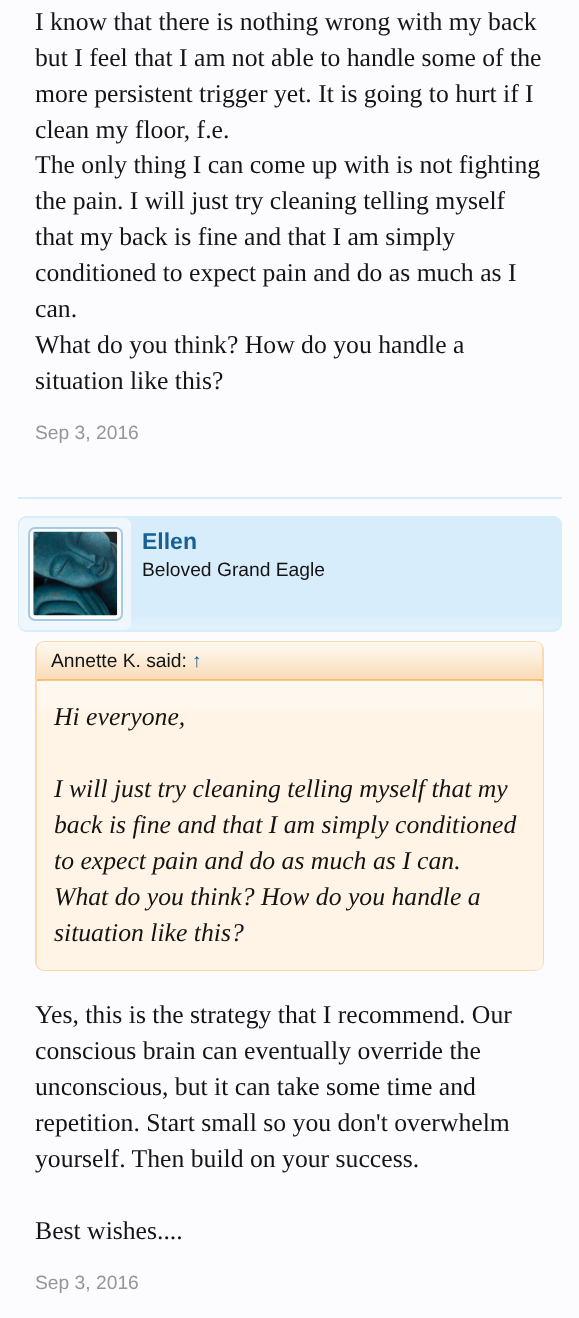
<?xml version="1.0" encoding="UTF-8"?>
<svg xmlns="http://www.w3.org/2000/svg" width="579" height="1318">
    <rect width="100%" height="100%" fill="#FCFCFF"/>
    <text font-family="Liberation Serif" font-size="25.7" fill="#141414">
        <tspan x="35" y="30">I know that there is nothing wrong with my back</tspan>
        <tspan x="35" y="66">but I feel that I am not able to handle some of the</tspan>
        <tspan x="35" y="102">more persistent trigger yet. It is going to hurt if I</tspan>
        <tspan x="35" y="138">clean my floor, f.e.</tspan>
        <tspan x="35" y="173">The only thing I can come up with is not fighting</tspan>
        <tspan x="35" y="209">the pain. I will just try cleaning telling myself</tspan>
        <tspan x="35" y="245">that my back is fine and that I am simply</tspan>
        <tspan x="35" y="281">conditioned to expect pain and do as much as I</tspan>
        <tspan x="35" y="317">can.</tspan>
        <tspan x="35" y="353">What do you think? How do you handle a</tspan>
        <tspan x="35" y="389">situation like this?</tspan>
    </text>
    <text x="35" y="439" font-family="Liberation Sans" font-size="19.25" fill="#969696">Sep 3, 2016</text>
    <rect x="18" y="497" width="544" height="2" fill="#D7EDFC"/>
    <rect x="18" y="516" width="544" height="116" rx="9" fill="#D7EDFC"/>
    <image x="18" y="617" width="544" height="13" href="img_01.png"/>
    <rect x="19" y="517" width="542" height="114" rx="8" fill="none" stroke="#D7EDFC" stroke-width="2"/>
    <rect x="19" y="518" width="112" height="112" rx="7" fill="#F0F7FC"/>
    <rect x="29" y="528" width="93" height="92" rx="6" fill="#FCFCFF" stroke="#A5CAE4" stroke-width="2"/>
    <image x="33" y="531" width="85" height="85" href="img_02.png"/>
    <text x="142" y="549" font-family="Liberation Sans" font-size="23" font-weight="700" fill="#176093">Ellen</text>
    <text x="142" y="576" font-family="Liberation Sans" font-size="19.25" fill="#141414">Beloved Grand Eagle</text>
    <rect x="36" y="642" width="507" height="328" rx="8" fill="none" stroke="#F9D9B0" stroke-width="2"/>
    <path d="M 44 642 H 536 C 540 642 543 645 543 649 V 681 H 37 V 649 C 37 645 40 642 44 642 Z" fill="#F9D9B0"/>
    <image x="37" y="642" width="506" height="37" href="img_03.png"/>
    <rect x="37" y="679" width="506" height="2" fill="#F9BC6D"/>
    <text x="51" y="667" font-family="Liberation Sans" font-size="19.25" fill="#141414">Annette K. said:</text>
    <text x="192" y="667" font-family="Liberation Sans" font-size="19.25" fill="#176093">↑</text>
    <rect x="37" y="681" width="506" height="289" rx="7" fill="#FFF4E5"/>
    <image x="37" y="680" width="505" height="33" href="img_04.png"/>
    <text x="54" y="725" font-family="Liberation Serif" font-size="25.7" font-style="italic" fill="#141414">Hi everyone,</text>
    <text font-family="Liberation Serif" font-size="25.7" font-style="italic" fill="#141414">
        <tspan x="54" y="797">I will just try cleaning telling myself that my</tspan>
        <tspan x="54" y="833">back is fine and that I am simply conditioned</tspan>
        <tspan x="54" y="869">to expect pain and do as much as I can.</tspan>
        <tspan x="54" y="905">What do you think? How do you handle a</tspan>
        <tspan x="54" y="941">situation like this?</tspan>
    </text>
    <text font-family="Liberation Serif" font-size="25.7" fill="#141414">
        <tspan x="35" y="1023">Yes, this is the strategy that I recommend. Our</tspan>
        <tspan x="35" y="1059">conscious brain can eventually override the</tspan>
        <tspan x="35" y="1095">unconscious, but it can take some time and</tspan>
        <tspan x="35" y="1131">repetition. Start small so you don't overwhelm</tspan>
        <tspan x="35" y="1167">yourself. Then build on your success.</tspan>
    </text>
    <text x="35" y="1239" font-family="Liberation Serif" font-size="25.7" fill="#141414">Best wishes....</text>
    <text x="35" y="1289" font-family="Liberation Sans" font-size="19.25" fill="#969696">Sep 3, 2016</text>
</svg>
